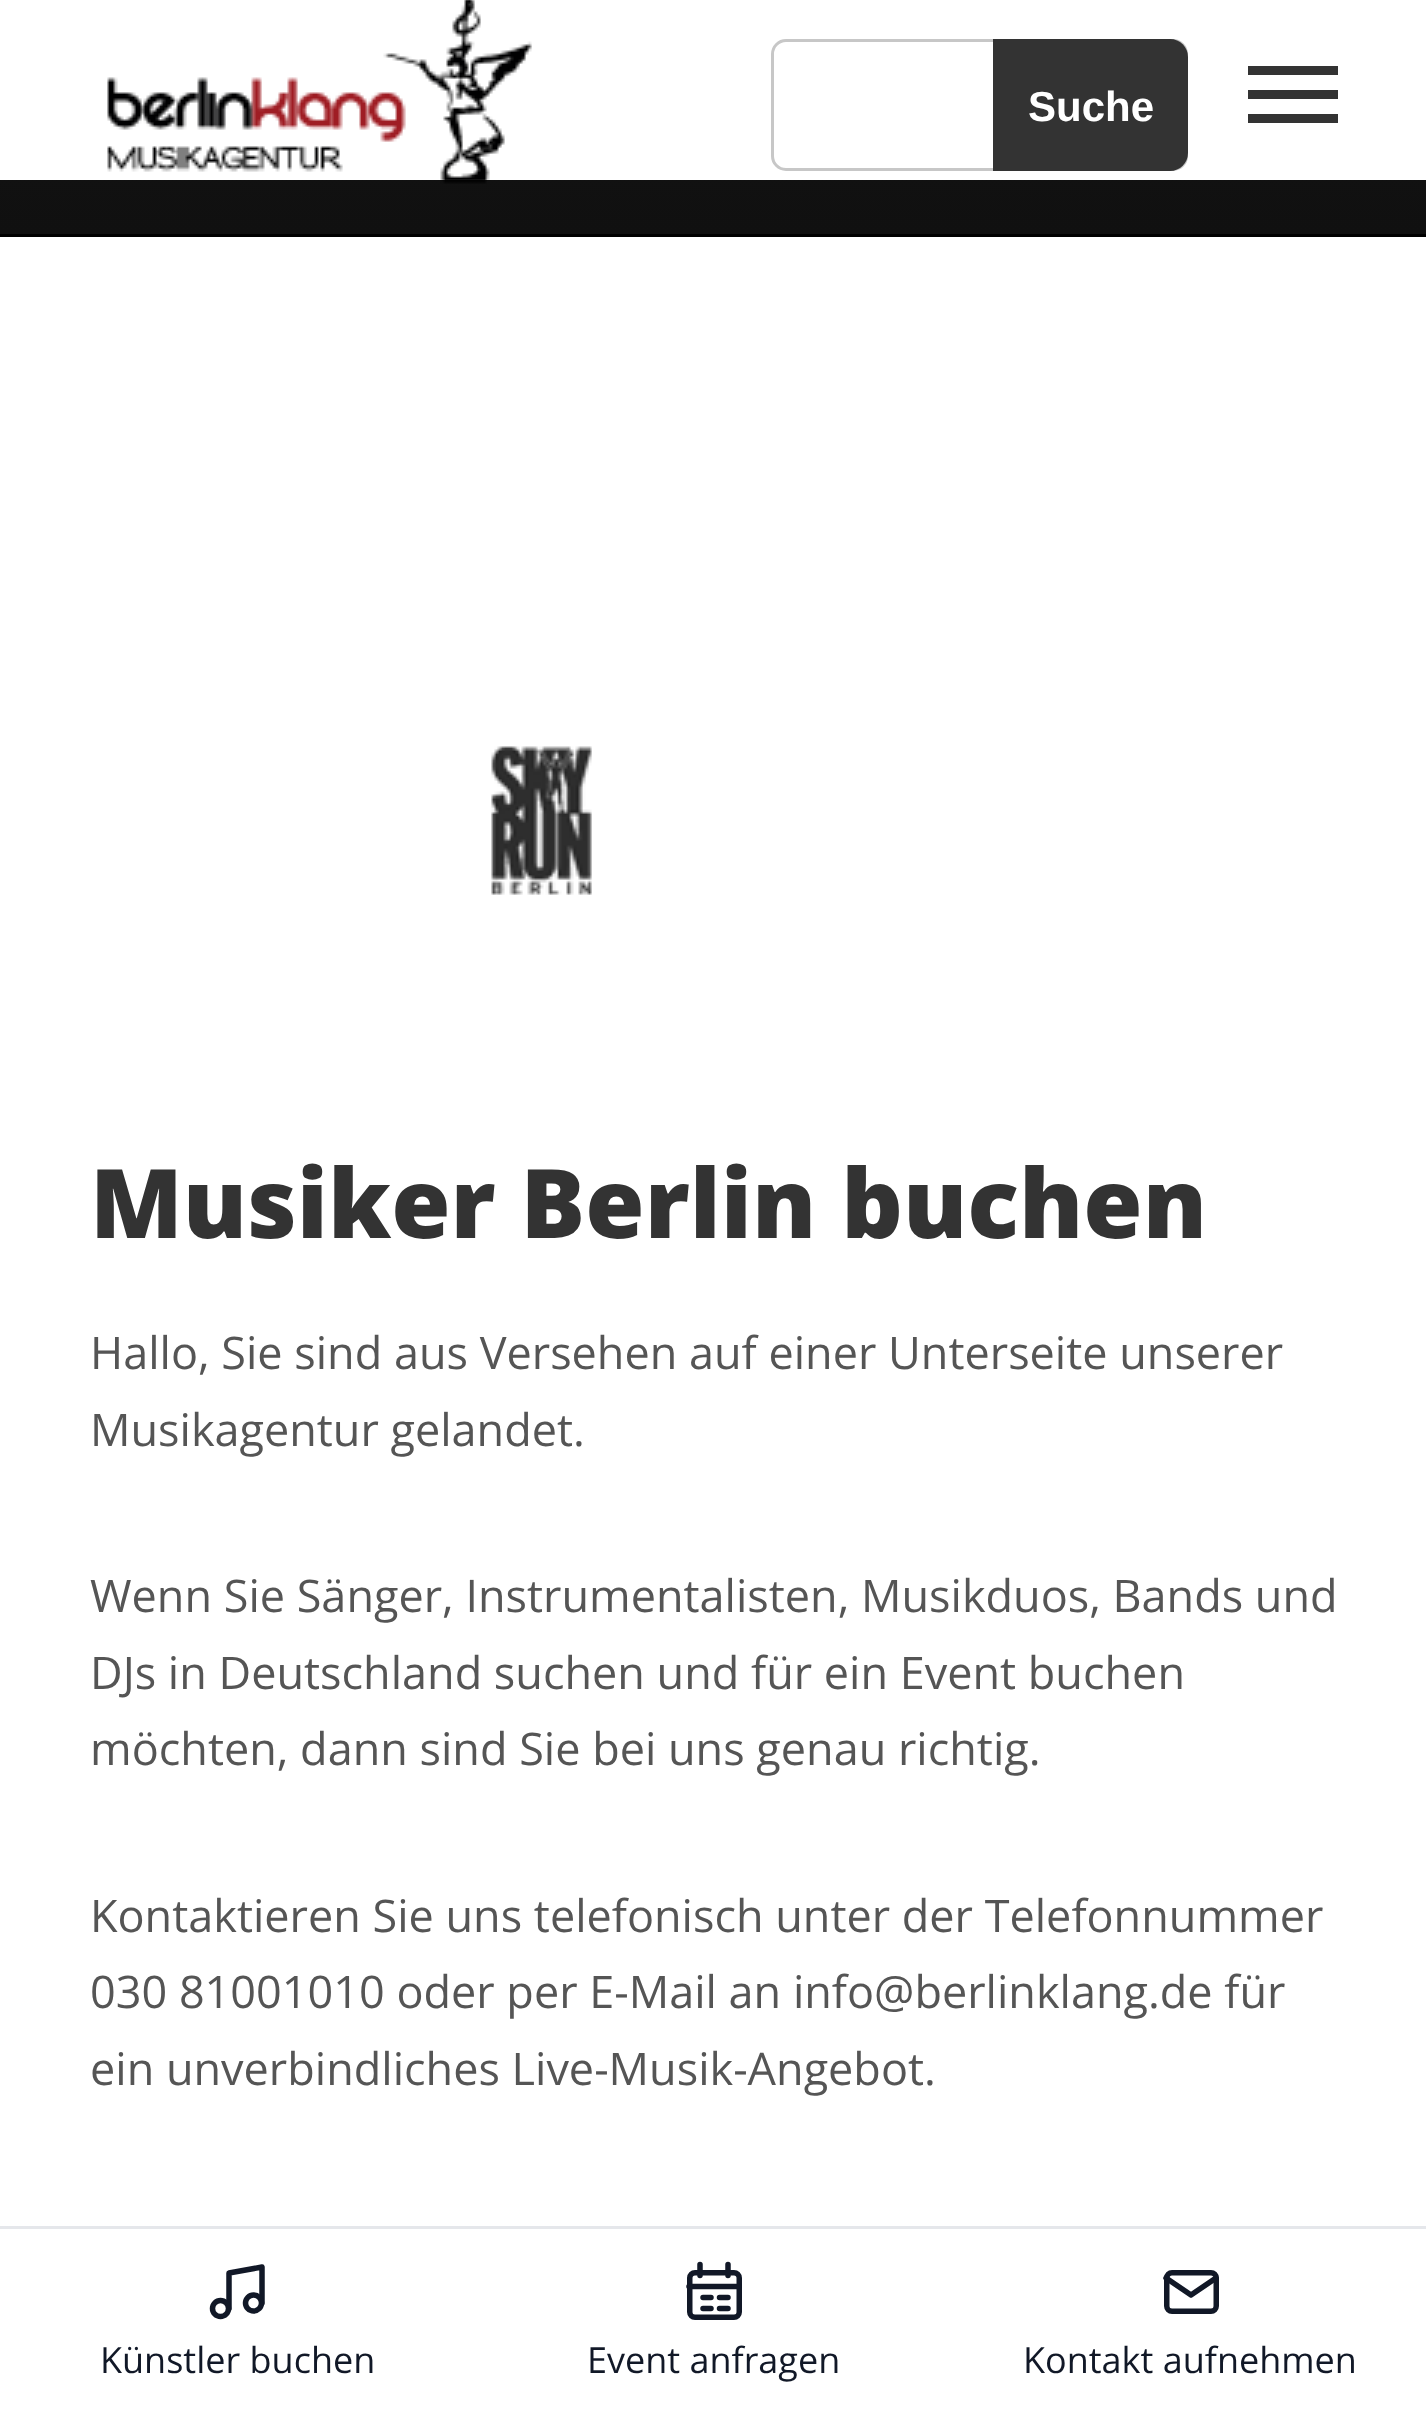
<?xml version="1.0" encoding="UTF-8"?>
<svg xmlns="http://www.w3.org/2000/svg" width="1426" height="2409">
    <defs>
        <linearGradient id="g1" gradientUnits="userSpaceOnUse" x1="714" y1="234" x2="714" y2="-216"><stop offset="0" stop-color="#101010"/><stop offset="0.4" stop-color="#131313"/><stop offset="1" stop-color="#121212"/></linearGradient>
    </defs>
    <rect width="100%" height="100%" fill="#FFFFFF"/>
    <rect x="0" y="180" width="1426" height="54" fill="url(#g1)"/>
    <image x="107" y="0" width="425" height="184" href="img_01.png"/>
    <rect x="772.5" y="40.5" width="414" height="129" rx="13.5" fill="none" stroke="#C7C7C7" stroke-width="3"/>
    <path d="M 993 39 H 1170 C 1180 39 1188 47 1188 57 V 153 C 1188 163 1180 171 1170 171 H 993 Z" fill="#333333"/>
    <text x="1028" y="121" font-family="Liberation Sans" font-size="42" font-weight="700" fill="#FFFFFF">Suche</text>
    <rect x="1248" y="90" width="90" height="9" fill="#333333"/>
    <rect x="1248" y="66" width="90" height="9" fill="#333333"/>
    <rect x="1248" y="114" width="90" height="9" fill="#333333"/>
    <rect x="0" y="234" width="1426" height="3" fill="#000000"/>
    <image x="491" y="746" width="101" height="149" href="img_02.png"/>
    <text x="90" y="1238" font-family="Open Sans" font-size="96" font-weight="800" fill="#333333">Musiker Berlin buchen</text>
    <text font-family="Open Sans" font-size="45" fill="#555555">
        <tspan x="90" y="1369">Hallo, Sie sind aus Versehen auf einer Unterseite unserer</tspan>
        <tspan x="90" y="1446">Musikagentur gelandet.</tspan>
    </text>
    <text font-family="Open Sans" font-size="45" fill="#555555">
        <tspan x="90" y="1612">Wenn Sie Sänger, Instrumentalisten, Musikduos, Bands und</tspan>
        <tspan x="90" y="1689">DJs in Deutschland suchen und für ein Event buchen</tspan>
        <tspan x="90" y="1765">möchten, dann sind Sie bei uns genau richtig.</tspan>
    </text>
    <text font-family="Open Sans" font-size="45" fill="#555555">
        <tspan x="90" y="1932">Kontaktieren Sie uns telefonisch unter der Telefonnummer</tspan>
        <tspan x="90" y="2008">030 81001010 oder per E-Mail an info@berlinklang.de für</tspan>
        <tspan x="90" y="2085">ein unverbindliches Live-Musik-Angebot.</tspan>
    </text>
    <rect x="0" y="2226" width="1426" height="3" fill="#E5E7EB"/>
    <path d="M 229 2308.5 V 2273 L 262 2267 V 2303" fill="none" stroke="#111827" stroke-width="5.5" stroke-linecap="round" stroke-linejoin="round"/>
    <circle cx="220.5" cy="2308.5" r="8" fill="none" stroke="#111827" stroke-width="5.5"/>
    <circle cx="253.5" cy="2303" r="8" fill="none" stroke="#111827" stroke-width="5.5"/>
    <text x="100" y="2373" font-family="Open Sans" font-size="36" fill="#111827">Künstler buchen</text>
    <path d="M 700 2264.5 V 2275.5 M 728 2264.5 V 2275.5" fill="none" stroke="#111827" stroke-width="5.5" stroke-linecap="round" stroke-linejoin="round"/>
    <rect x="689.75" y="2272.75" width="49.5" height="44.5" rx="5.25" fill="none" stroke="#111827" stroke-width="5.5"/>
    <path d="M 689 2286.5 H 739 M 703 2297.5 H 711 M 719.5 2297.5 H 728 M 703 2308.5 H 711 M 719.5 2308.5 H 728" fill="none" stroke="#111827" stroke-width="5.5" stroke-linecap="round" stroke-linejoin="round"/>
    <text x="587" y="2373" font-family="Open Sans" font-size="36" fill="#111827">Event anfragen</text>
    <rect x="1166.75" y="2272.75" width="49.5" height="38.5" rx="5.25" fill="none" stroke="#111827" stroke-width="5.5"/>
    <path d="M 1166 2278 L 1191 2295 L 1216 2278" fill="none" stroke="#111827" stroke-width="5.5" stroke-linecap="round" stroke-linejoin="round"/>
    <text x="1023" y="2373" font-family="Open Sans" font-size="36" fill="#111827">Kontakt aufnehmen</text>
</svg>
